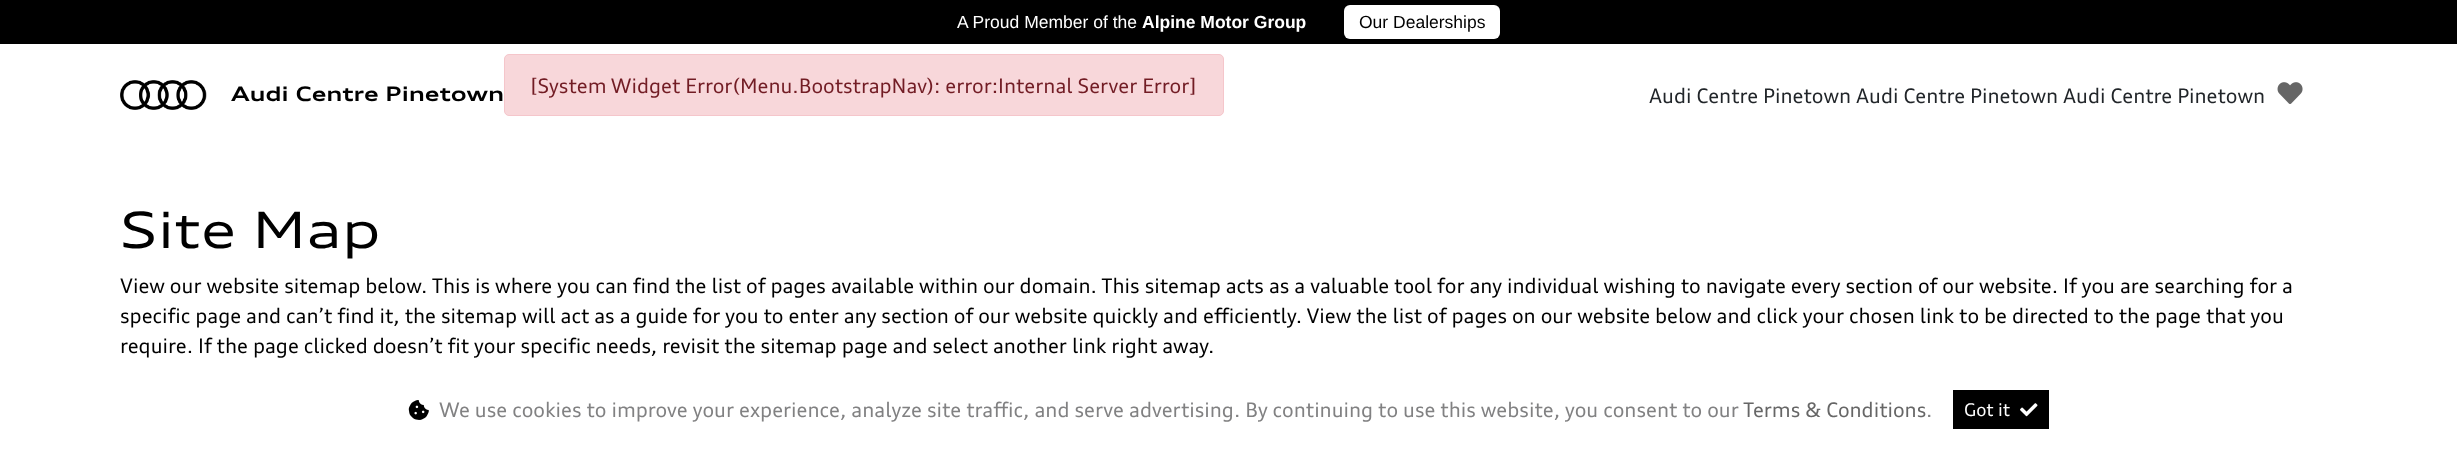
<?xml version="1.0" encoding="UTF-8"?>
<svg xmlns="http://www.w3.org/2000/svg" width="2457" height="449">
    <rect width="100%" height="100%" fill="#FFFFFF"/>
    <rect x="0" y="0" width="2457" height="44" fill="#000000"/>
    <text x="957" y="28" font-family="Liberation Sans" font-size="17.5" fill="#FFFFFF">A Proud Member of the</text>
    <text x="1142" y="28" font-family="Liberation Sans" font-size="17.5" font-weight="700" fill="#FFFFFF">Alpine Motor Group</text>
    <rect x="1344" y="5" width="156" height="34" rx="6" fill="#FFFFFF"/>
    <text x="1359" y="28" font-family="Liberation Sans" font-size="17.5" fill="#000000">Our Dealerships</text>
    <image x="120" y="80" width="87" height="30" href="img_01.png"/>
    <text x="231" y="101" font-family="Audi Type" font-size="20" font-weight="700" fill="#000000">Audi Centre Pinetown</text>
    <rect x="504.5" y="54.5" width="719" height="61" rx="4.5" fill="#F8D7DA" stroke="#F5C6CB"/>
    <text x="530" y="93" font-family="'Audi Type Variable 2'" font-size="20" fill="#721C24">[System Widget Error(Menu.BootstrapNav): error:Internal Server Error]</text>
    <text x="1649" y="103" font-family="'Audi Type Variable 2'" font-size="20" fill="#212529">Audi Centre Pinetown Audi Centre Pinetown Audi Centre Pinetown</text>
    <image x="2277" y="82" width="26" height="22" href="img_02.png"/>
    <text x="120" y="248" font-family="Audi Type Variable" font-size="50" fill="#000000">Site Map</text>
    <text font-family="'Audi Type Variable 2'" font-size="20" fill="#000000">
        <tspan x="120" y="293">View our website sitemap below. This is where you can find the list of pages available within our domain. This sitemap acts as a valuable tool for any individual wishing to navigate every section of our website. If you are searching for a</tspan>
        <tspan x="120" y="323">specific page and can’t find it, the sitemap will act as a guide for you to enter any section of our website quickly and efficiently. View the list of pages on our website below and click your chosen link to be directed to the page that you</tspan>
        <tspan x="120" y="353">require. If the page clicked doesn’t fit your specific needs, revisit the sitemap page and select another link right away.</tspan>
    </text>
    <image x="408" y="400" width="21" height="20" href="img_03.png"/>
    <text x="439" y="417" font-family="'Audi Type Variable 2'" font-size="20" fill="#818182">We use cookies to improve your experience, analyze site traffic, and serve advertising. By continuing to use this website, you consent to our</text>
    <text x="1743" y="417" font-family="'Audi Type Variable 2'" font-size="20" fill="#666666">Terms &amp; Conditions</text>
    <text x="1926" y="417" font-family="'Audi Type Variable 2'" font-size="20" fill="#818182">.</text>
    <rect x="1953" y="390" width="96" height="39" fill="#000000"/>
    <text x="1964" y="416" font-family="'Audi Type Variable 2'" font-size="17.5" fill="#FFFFFF">Got it</text>
    <image x="2020" y="403" width="18" height="14" href="img_04.png"/>
</svg>
